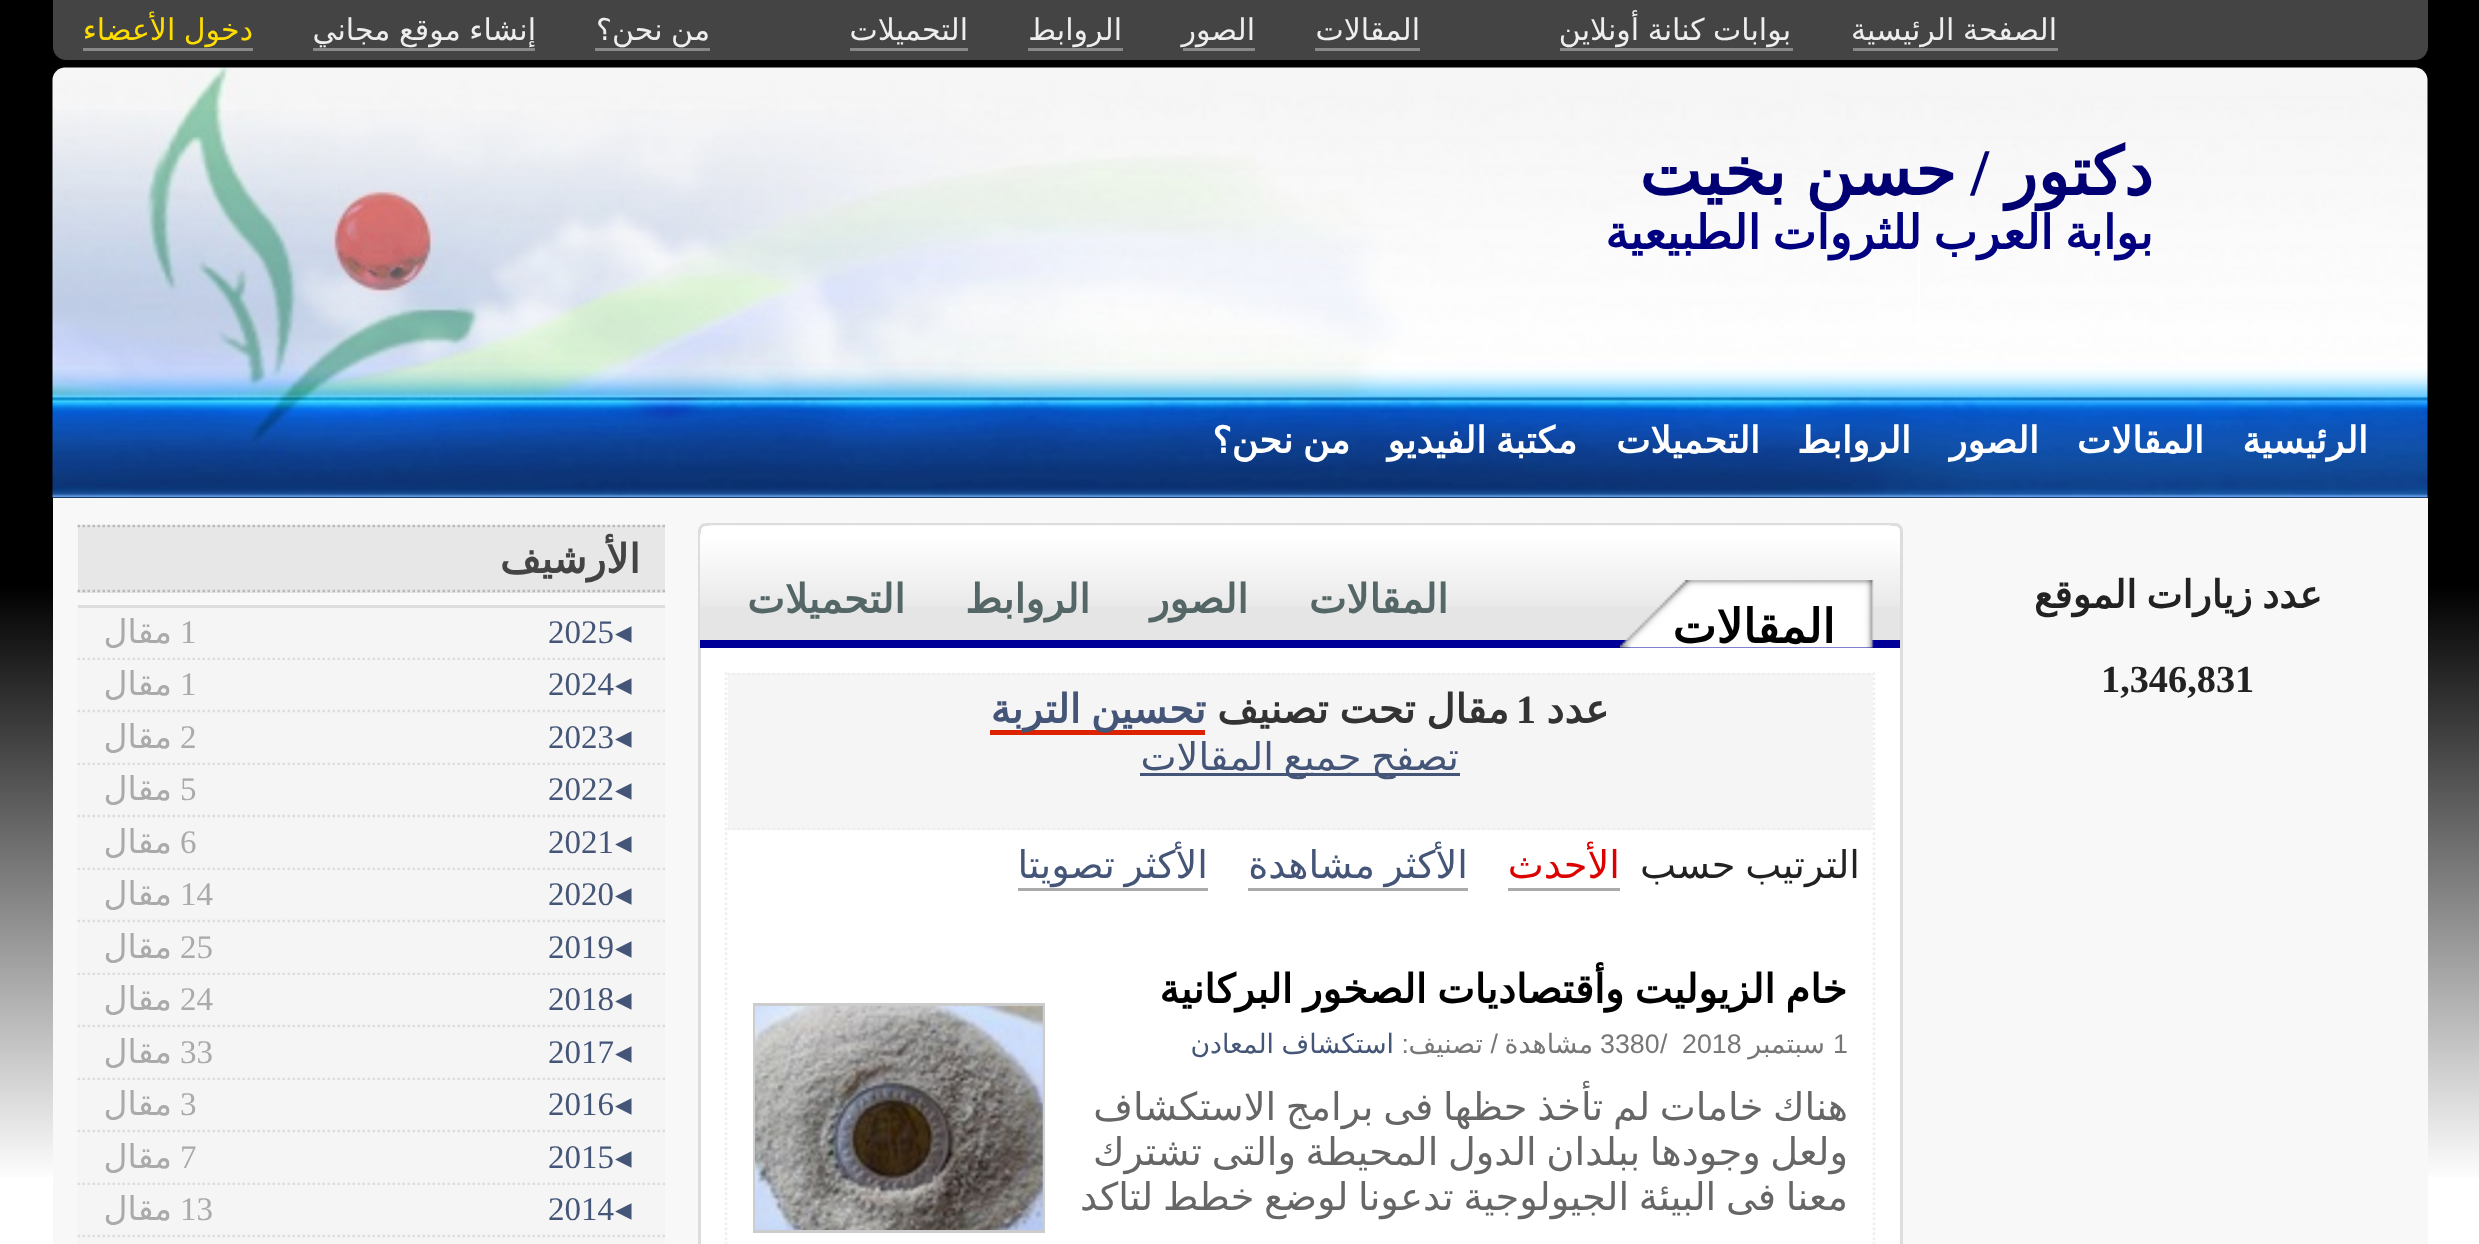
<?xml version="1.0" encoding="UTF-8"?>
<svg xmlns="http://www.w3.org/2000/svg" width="2479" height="1244">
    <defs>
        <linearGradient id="g1" gradientUnits="userSpaceOnUse" x1="0" y1="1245" x2="0" y2="0"><stop offset="0.05" stop-color="#FFFFFF"/><stop offset="0.53" stop-color="#000000"/></linearGradient>
    </defs>
    <rect width="100%" height="100%" fill="#FFFFFF"/>
    <rect x="0" y="0" width="2479" height="1177" fill="url(#g1)"/>
    <path d="M 53 0 H 2428 V 47 C 2428 54 2422 60 2415 60 H 66 C 59 60 53 54 53 47 Z" fill="#444444"/>
    <text x="2057" y="40" word-spacing="-1" font-family="DejaVu Sans" font-size="30" direction="rtl" fill="#EEEEEE">الصفحة الرئيسية</text>
    <rect x="1853" y="48" width="205" height="3" fill="#888888"/>
    <text x="1791" y="40" word-spacing="-1" font-family="DejaVu Sans" font-size="30" direction="rtl" fill="#EEEEEE">بوابات كنانة أونلاين</text>
    <rect x="1560" y="48" width="233" height="3" fill="#888888"/>
    <text x="1420" y="40" font-family="DejaVu Sans" font-size="30" direction="rtl" fill="#EEEEEE">المقالات</text>
    <rect x="1315" y="48" width="105" height="3" fill="#888888"/>
    <text x="1255" y="40" font-family="DejaVu Sans" font-size="30" direction="rtl" fill="#EEEEEE">الصور</text>
    <rect x="1183" y="48" width="72" height="3" fill="#888888"/>
    <text x="1122" y="40" font-family="DejaVu Sans" font-size="30" direction="rtl" fill="#EEEEEE">الروابط</text>
    <rect x="1028" y="48" width="95" height="3" fill="#888888"/>
    <text x="968" y="40" font-family="DejaVu Sans" font-size="30" direction="rtl" fill="#EEEEEE">التحميلات</text>
    <rect x="850" y="48" width="118" height="3" fill="#888888"/>
    <text x="710" y="40" word-spacing="-1" font-family="DejaVu Sans" font-size="30" direction="rtl" fill="#EEEEEE">من نحن؟</text>
    <rect x="595" y="48" width="115" height="3" fill="#888888"/>
    <text x="536" y="40" word-spacing="-1" font-family="DejaVu Sans" font-size="30" direction="rtl" fill="#EEEEEE">إنشاء موقع مجاني</text>
    <rect x="313" y="48" width="222" height="3" fill="#888888"/>
    <text x="253" y="40" word-spacing="-1" font-family="DejaVu Sans" font-size="30" direction="rtl" fill="#FFDD00">دخول الأعضاء</text>
    <rect x="83" y="48" width="170" height="3" fill="#888888"/>
    <image x="52" y="67" width="2376" height="431" href="img_01.png"/>
    <text x="2153" y="195" font-family="DejaVu Sans" font-size="66.5" font-weight="700" direction="rtl" fill="#000073">دكتور</text>
    <text x="1989" y="195" font-family="Liberation Serif" font-size="66.5" font-weight="700" direction="rtl" fill="#000073">/</text>
    <text x="1956" y="195" word-spacing="-2" font-family="DejaVu Sans" font-size="66.5" font-weight="700" direction="rtl" fill="#000073">حسن بخيت</text>
    <text x="2153" y="249" word-spacing="-3" font-family="DejaVu Sans" font-size="46.75" font-weight="700" direction="rtl" fill="#000080">بوابة العرب للثروات الطبيعية</text>
    <text x="2368" y="453" font-family="DejaVu Sans" font-size="36.5" font-weight="700" direction="rtl" fill="#FFFFFF">الرئيسية</text>
    <text x="2204" y="453" font-family="DejaVu Sans" font-size="36.5" font-weight="700" direction="rtl" fill="#FFFFFF">المقالات</text>
    <text x="2039" y="453" font-family="DejaVu Sans" font-size="36.5" font-weight="700" direction="rtl" fill="#FFFFFF">الصور</text>
    <text x="1911" y="453" font-family="DejaVu Sans" font-size="36.5" font-weight="700" direction="rtl" fill="#FFFFFF">الروابط</text>
    <text x="1760" y="453" font-family="DejaVu Sans" font-size="36.5" font-weight="700" direction="rtl" fill="#FFFFFF">التحميلات</text>
    <text x="1577" y="453" word-spacing="-2" font-family="DejaVu Sans" font-size="36.5" font-weight="700" direction="rtl" fill="#FFFFFF">مكتبة الفيديو</text>
    <text x="1350" y="453" word-spacing="-2" font-family="DejaVu Sans" font-size="36.5" font-weight="700" direction="rtl" fill="#FFFFFF">من نحن؟</text>
    <rect x="53" y="498" width="2375" height="746" fill="#F8F8F8"/>
    <text x="2322" y="608" word-spacing="-2.5" font-family="DejaVu Sans" font-size="38.3" font-weight="700" direction="rtl" fill="#222222">عدد زيارات الموقع</text>
    <text x="2101" y="692" font-family="Liberation Serif" font-size="38.3" font-weight="700" fill="#222222">1,346,831</text>
    <rect x="699.5" y="524.5" width="1202" height="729" rx="6.5" fill="#FFFFFF" stroke="#DDDDDD" stroke-width="3"/>
    <path d="M 713 525 H 1887 C 1894 525 1900 531 1900 538 V 648 H 700 V 538 C 700 531 706 525 713 525 Z" fill="#E5E5E5"/>
    <image x="700" y="525" width="1200" height="82" href="img_02.png"/>
    <rect x="700" y="640" width="1200" height="8" fill="#000099"/>
    <image x="1620" y="580" width="254" height="68" href="img_03.png"/>
    <text x="1835" y="643" font-family="DejaVu Sans" font-size="46.75" font-weight="700" direction="rtl" fill="#000000">المقالات</text>
    <text x="1448" y="613" font-family="DejaVu Sans" font-size="40" font-weight="700" direction="rtl" fill="#556666">المقالات</text>
    <text x="1248" y="613" font-family="DejaVu Sans" font-size="40" font-weight="700" direction="rtl" fill="#556666">الصور</text>
    <text x="1090" y="613" font-family="DejaVu Sans" font-size="40" font-weight="700" direction="rtl" fill="#556666">الروابط</text>
    <text x="905" y="613" font-family="DejaVu Sans" font-size="40" font-weight="700" direction="rtl" fill="#556666">التحميلات</text>
    <path d="M 1874 672.5 V 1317.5" fill="none" stroke="#EEEEEE" stroke-width="2.5" stroke-dasharray="2.5 2.5"/>
    <path d="M 726 672.5 V 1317.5" fill="none" stroke="#EEEEEE" stroke-width="2.5" stroke-dasharray="2.5 2.5"/>
    <rect x="728" y="673" width="1145" height="157" fill="#F5F5F5"/>
    <path d="M 727.5 674 H 1872.5" fill="none" stroke="#EEEEEE" stroke-width="2.5" stroke-dasharray="2.5 2.5"/>
    <path d="M 727.5 829 H 1872.5" fill="none" stroke="#EEEEEE" stroke-width="2.5" stroke-dasharray="2.5 2.5"/>
    <text x="1609" y="723" font-family="DejaVu Sans" font-size="40" font-weight="700" direction="rtl" fill="#333333">عدد</text>
    <text x="1516" y="723" font-family="Liberation Serif" font-size="40" font-weight="700" fill="#333333">1</text>
    <text x="1509" y="723" word-spacing="-2" font-family="DejaVu Sans" font-size="40" font-weight="700" direction="rtl" fill="#333333">مقال تحت تصنيف</text>
    <rect x="990" y="730" width="215" height="5" fill="#DD2200"/>
    <text x="1206" y="723" word-spacing="-2.5" font-family="DejaVu Sans" font-size="40" font-weight="700" direction="rtl" fill="#445577">تحسين التربة</text>
    <rect x="1140" y="773" width="320" height="3" fill="#445577"/>
    <text x="1459" y="770" word-spacing="-2.5" font-family="DejaVu Sans" font-size="38.3" direction="rtl" fill="#445577">تصفح جميع المقالات</text>
    <text x="1860" y="878" word-spacing="-2.5" font-family="DejaVu Sans" font-size="38.3" direction="rtl" fill="#222222">الترتيب حسب</text>
    <rect x="1508" y="888" width="112" height="3" fill="#AAAAAA"/>
    <text x="1620" y="878" font-family="DejaVu Sans" font-size="38.3" direction="rtl" fill="#DD0000">الأحدث</text>
    <rect x="1248" y="888" width="220" height="3" fill="#AAAAAA"/>
    <text x="1468" y="878" word-spacing="-2.5" font-family="DejaVu Sans" font-size="38.3" direction="rtl" fill="#445577">الأكثر مشاهدة</text>
    <rect x="1018" y="888" width="190" height="3" fill="#AAAAAA"/>
    <text x="1208" y="878" word-spacing="-2.5" font-family="DejaVu Sans" font-size="38.3" direction="rtl" fill="#445577">الأكثر تصويتا</text>
    <text x="1847" y="1003" word-spacing="-2.5" font-family="DejaVu Sans" font-size="40" font-weight="700" direction="rtl" fill="#000000">خام الزيوليت وأقتصاديات الصخور البركانية</text>
    <text x="1833" y="1053" font-family="Liberation Sans" font-size="26.75" fill="#777777">1</text>
    <text x="1825" y="1053" font-family="DejaVu Sans" font-size="26.75" direction="rtl" fill="#777777">سبتمبر</text>
    <text x="1682" y="1053" font-family="Liberation Sans" font-size="26.75" fill="#777777">2018</text>
    <text x="1660" y="1053" font-family="Liberation Sans" font-size="26.75" fill="#777777">/</text>
    <text x="1600" y="1053" font-family="Liberation Sans" font-size="26.75" fill="#777777">3380</text>
    <text x="1593" y="1053" font-family="DejaVu Sans" font-size="26.75" direction="rtl" fill="#777777">مشاهدة</text>
    <text x="1498" y="1053" font-family="Liberation Sans" font-size="26.75" direction="rtl" fill="#777777">/</text>
    <text x="1483" y="1053" font-family="DejaVu Sans" font-size="26.75" direction="rtl" fill="#777777">تصنيف</text>
    <text x="1409" y="1053" font-family="Liberation Sans" font-size="26.75" direction="rtl" fill="#777777">:</text>
    <text x="1394" y="1053" word-spacing="-1" font-family="DejaVu Sans" font-size="26.75" direction="rtl" fill="#445577">استكشاف المعادن</text>
    <rect x="754.5" y="1004.5" width="289" height="227" fill="none" stroke="#CCCCCC" stroke-width="3"/>
    <image x="755" y="1006" width="288" height="224" href="img_04.png"/>
    <text font-family="DejaVu Sans" font-size="38.3" direction="rtl" fill="#666666">
        <tspan x="1848" y="1120" word-spacing="-2.5">هناك خامات لم تأخذ حظها فى برامج الاستكشاف</tspan>
        <tspan x="1848" y="1165" word-spacing="-2.5">ولعل وجودها ببلدان الدول المحيطة والتى تشترك</tspan>
        <tspan x="1848" y="1210" word-spacing="-2.5">معنا فى البيئة الجيولوجية تدعونا لوضع خطط لتاكد</tspan>
    </text>
    <rect x="78" y="525" width="587" height="68" fill="#E7E7E7"/>
    <path d="M 77.5 526 H 665" fill="none" stroke="#BBBBBB" stroke-width="2.5" stroke-dasharray="2.5 2.5"/>
    <path d="M 77.5 591 H 665" fill="none" stroke="#BBBBBB" stroke-width="2.5" stroke-dasharray="2.5 2.5"/>
    <text x="640" y="573" font-family="DejaVu Sans" font-size="40" font-weight="700" direction="rtl" fill="#444444">الأرشيف</text>
    <rect x="78" y="605" width="587" height="3" fill="#DDDDDD"/>
    <rect x="78" y="608" width="587" height="52" fill="#F5F5F5"/>
    <path d="M 77.5 659 H 665" fill="none" stroke="#DDDDDD" stroke-width="2.5" stroke-dasharray="2.5 2.5"/>
    <text x="615" y="643" font-family="DejaVu Sans" font-size="33" fill="#445577">◂</text>
    <text x="548" y="643" font-family="Liberation Serif" font-size="33" fill="#445577">2025</text>
    <text x="180" y="643" font-family="Liberation Serif" font-size="33" fill="#AAAAAA">1</text>
    <text x="172" y="643" font-family="DejaVu Sans" font-size="33" direction="rtl" fill="#AAAAAA">مقال</text>
    <rect x="78" y="660" width="587" height="105" fill="#F5F5F5"/>
    <path d="M 77.5 711 H 665" fill="none" stroke="#DDDDDD" stroke-width="2.5" stroke-dasharray="2.5 2.5"/>
    <text x="615" y="695" font-family="DejaVu Sans" font-size="33" fill="#445577">◂</text>
    <text x="548" y="695" font-family="Liberation Serif" font-size="33" fill="#445577">2024</text>
    <text x="180" y="695" font-family="Liberation Serif" font-size="33" fill="#AAAAAA">1</text>
    <text x="172" y="695" font-family="DejaVu Sans" font-size="33" direction="rtl" fill="#AAAAAA">مقال</text>
    <path d="M 77.5 764 H 665" fill="none" stroke="#DDDDDD" stroke-width="2.5" stroke-dasharray="2.5 2.5"/>
    <text x="615" y="748" font-family="DejaVu Sans" font-size="33" fill="#445577">◂</text>
    <text x="548" y="748" font-family="Liberation Serif" font-size="33" fill="#445577">2023</text>
    <text x="180" y="748" font-family="Liberation Serif" font-size="33" fill="#AAAAAA">2</text>
    <text x="172" y="748" font-family="DejaVu Sans" font-size="33" direction="rtl" fill="#AAAAAA">مقال</text>
    <rect x="78" y="765" width="587" height="105" fill="#F5F5F5"/>
    <path d="M 77.5 816 H 665" fill="none" stroke="#DDDDDD" stroke-width="2.5" stroke-dasharray="2.5 2.5"/>
    <text x="615" y="800" font-family="DejaVu Sans" font-size="33" fill="#445577">◂</text>
    <text x="548" y="800" font-family="Liberation Serif" font-size="33" fill="#445577">2022</text>
    <text x="180" y="800" font-family="Liberation Serif" font-size="33" fill="#AAAAAA">5</text>
    <text x="172" y="800" font-family="DejaVu Sans" font-size="33" direction="rtl" fill="#AAAAAA">مقال</text>
    <path d="M 77.5 869 H 665" fill="none" stroke="#DDDDDD" stroke-width="2.5" stroke-dasharray="2.5 2.5"/>
    <text x="615" y="853" font-family="DejaVu Sans" font-size="33" fill="#445577">◂</text>
    <text x="548" y="853" font-family="Liberation Serif" font-size="33" fill="#445577">2021</text>
    <text x="180" y="853" font-family="Liberation Serif" font-size="33" fill="#AAAAAA">6</text>
    <text x="172" y="853" font-family="DejaVu Sans" font-size="33" direction="rtl" fill="#AAAAAA">مقال</text>
    <rect x="78" y="870" width="587" height="105" fill="#F5F5F5"/>
    <path d="M 77.5 921 H 665" fill="none" stroke="#DDDDDD" stroke-width="2.5" stroke-dasharray="2.5 2.5"/>
    <text x="615" y="905" font-family="DejaVu Sans" font-size="33" fill="#445577">◂</text>
    <text x="548" y="905" font-family="Liberation Serif" font-size="33" fill="#445577">2020</text>
    <text x="180" y="905" font-family="Liberation Serif" font-size="33" fill="#AAAAAA">14</text>
    <text x="172" y="905" font-family="DejaVu Sans" font-size="33" direction="rtl" fill="#AAAAAA">مقال</text>
    <path d="M 77.5 974 H 665" fill="none" stroke="#DDDDDD" stroke-width="2.5" stroke-dasharray="2.5 2.5"/>
    <text x="615" y="958" font-family="DejaVu Sans" font-size="33" fill="#445577">◂</text>
    <text x="548" y="958" font-family="Liberation Serif" font-size="33" fill="#445577">2019</text>
    <text x="180" y="958" font-family="Liberation Serif" font-size="33" fill="#AAAAAA">25</text>
    <text x="172" y="958" font-family="DejaVu Sans" font-size="33" direction="rtl" fill="#AAAAAA">مقال</text>
    <rect x="78" y="975" width="587" height="105" fill="#F5F5F5"/>
    <path d="M 77.5 1026 H 665" fill="none" stroke="#DDDDDD" stroke-width="2.5" stroke-dasharray="2.5 2.5"/>
    <text x="615" y="1010" font-family="DejaVu Sans" font-size="33" fill="#445577">◂</text>
    <text x="548" y="1010" font-family="Liberation Serif" font-size="33" fill="#445577">2018</text>
    <text x="180" y="1010" font-family="Liberation Serif" font-size="33" fill="#AAAAAA">24</text>
    <text x="172" y="1010" font-family="DejaVu Sans" font-size="33" direction="rtl" fill="#AAAAAA">مقال</text>
    <path d="M 77.5 1079 H 665" fill="none" stroke="#DDDDDD" stroke-width="2.5" stroke-dasharray="2.5 2.5"/>
    <text x="615" y="1063" font-family="DejaVu Sans" font-size="33" fill="#445577">◂</text>
    <text x="548" y="1063" font-family="Liberation Serif" font-size="33" fill="#445577">2017</text>
    <text x="180" y="1063" font-family="Liberation Serif" font-size="33" fill="#AAAAAA">33</text>
    <text x="172" y="1063" font-family="DejaVu Sans" font-size="33" direction="rtl" fill="#AAAAAA">مقال</text>
    <rect x="78" y="1080" width="587" height="105" fill="#F5F5F5"/>
    <path d="M 77.5 1131 H 665" fill="none" stroke="#DDDDDD" stroke-width="2.5" stroke-dasharray="2.5 2.5"/>
    <text x="615" y="1115" font-family="DejaVu Sans" font-size="33" fill="#445577">◂</text>
    <text x="548" y="1115" font-family="Liberation Serif" font-size="33" fill="#445577">2016</text>
    <text x="180" y="1115" font-family="Liberation Serif" font-size="33" fill="#AAAAAA">3</text>
    <text x="172" y="1115" font-family="DejaVu Sans" font-size="33" direction="rtl" fill="#AAAAAA">مقال</text>
    <path d="M 77.5 1184 H 665" fill="none" stroke="#DDDDDD" stroke-width="2.5" stroke-dasharray="2.5 2.5"/>
    <text x="615" y="1168" font-family="DejaVu Sans" font-size="33" fill="#445577">◂</text>
    <text x="548" y="1168" font-family="Liberation Serif" font-size="33" fill="#445577">2015</text>
    <text x="180" y="1168" font-family="Liberation Serif" font-size="33" fill="#AAAAAA">7</text>
    <text x="172" y="1168" font-family="DejaVu Sans" font-size="33" direction="rtl" fill="#AAAAAA">مقال</text>
    <rect x="78" y="1185" width="587" height="59" fill="#F5F5F5"/>
    <path d="M 77.5 1236 H 665" fill="none" stroke="#DDDDDD" stroke-width="2.5" stroke-dasharray="2.5 2.5"/>
    <text x="615" y="1220" font-family="DejaVu Sans" font-size="33" fill="#445577">◂</text>
    <text x="548" y="1220" font-family="Liberation Serif" font-size="33" fill="#445577">2014</text>
    <text x="180" y="1220" font-family="Liberation Serif" font-size="33" fill="#AAAAAA">13</text>
    <text x="172" y="1220" font-family="DejaVu Sans" font-size="33" direction="rtl" fill="#AAAAAA">مقال</text>
</svg>
